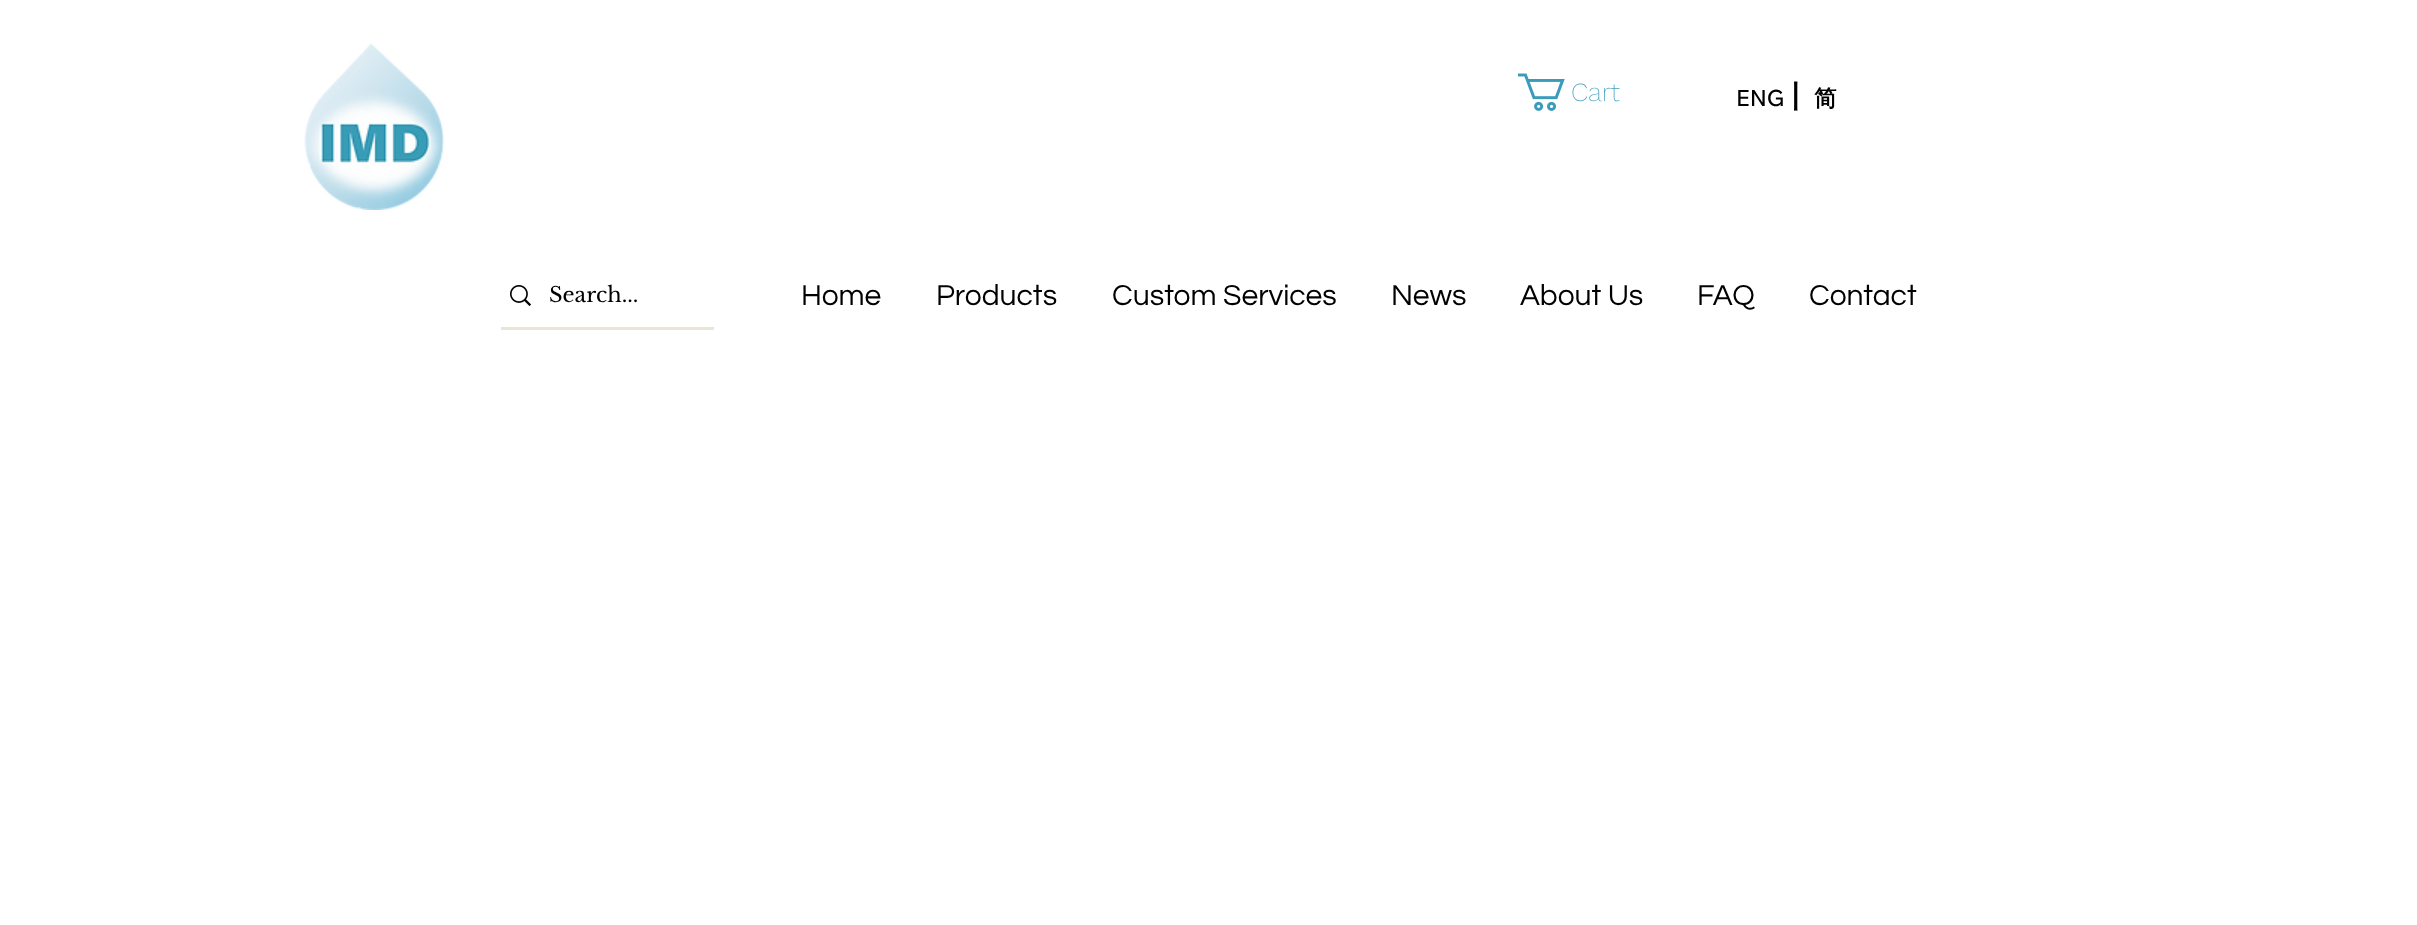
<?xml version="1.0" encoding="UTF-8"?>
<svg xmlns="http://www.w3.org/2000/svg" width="2417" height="925">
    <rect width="100%" height="100%" fill="#FFFFFF"/>
    <image x="304" y="43" width="141" height="167" href="img_01.png"/>
    <image x="1518" y="73" width="47" height="38" href="img_02.png"/>
    <text x="1571" y="101" font-family="Work Sans" font-size="26" font-weight="200" fill="#3B9BBB">Cart</text>
    <text x="1736" y="106" font-family="Wix Madefor Text" font-size="22.5" font-weight="500" fill="#000000">ENG</text>
    <text x="1781" y="107" font-family="WenQuanYi Zen Hei" font-size="30" font-weight="700" fill="#000000">丨</text>
    <text x="1814" y="106" font-family="WenQuanYi Zen Hei" font-size="22.5" font-weight="700" fill="#000000">简</text>
    <rect x="501" y="327" width="213" height="3" fill="#EBE5D6"/>
    <image x="510" y="285" width="21" height="21" href="img_03.png"/>
    <text x="549" y="302" font-family="Libre Baskerville" font-size="21" fill="#000000">Search...</text>
    <text x="801" y="305" font-family="Questrial" font-size="30" fill="#000000">Home</text>
    <text x="936" y="305" font-family="Questrial" font-size="30" fill="#000000">Products</text>
    <text x="1112" y="305" font-family="Questrial" font-size="30" fill="#000000">Custom Services</text>
    <text x="1391" y="305" font-family="Questrial" font-size="30" fill="#000000">News</text>
    <text x="1520" y="305" font-family="Questrial" font-size="30" fill="#000000">About Us</text>
    <text x="1697" y="305" font-family="Questrial" font-size="30" fill="#000000">FAQ</text>
    <text x="1809" y="305" font-family="Questrial" font-size="30" fill="#000000">Contact</text>
</svg>
